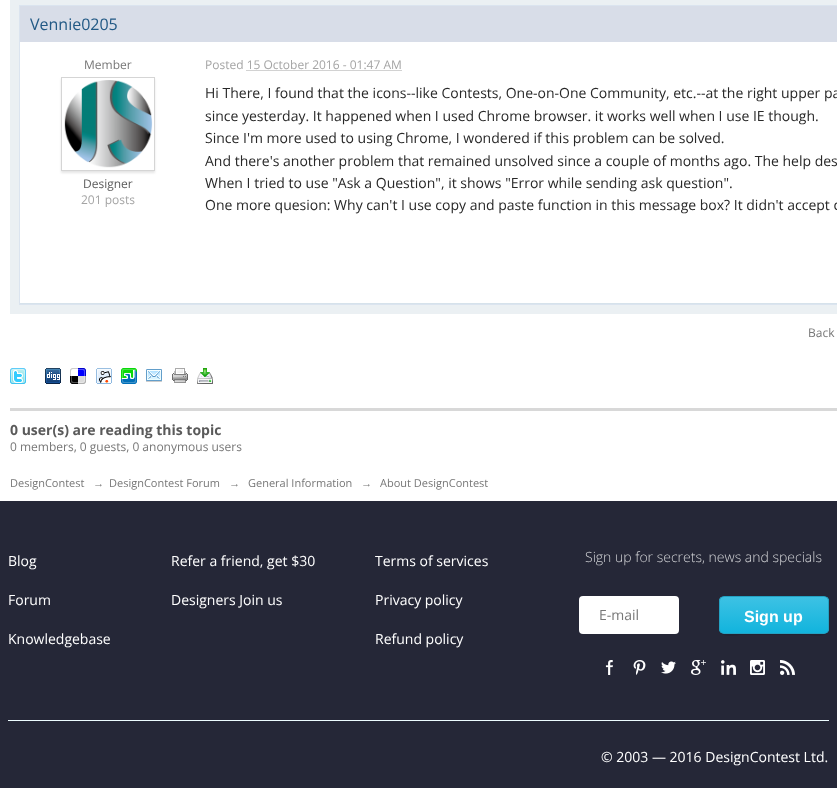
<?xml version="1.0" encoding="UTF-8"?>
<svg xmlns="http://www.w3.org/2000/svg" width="837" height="788">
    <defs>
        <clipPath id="clip1"><path d="M 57 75 H 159 V 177 H 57 Z M 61 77 H 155 V 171 H 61 Z" clip-rule="evenodd"/></clipPath>
        <filter id="blur1" x="-50%" y="-200%" width="200%" height="500%"><feGaussianBlur stdDeviation="1"/></filter>
        <clipPath id="clip2"><rect x="719" y="596" width="110" height="38" rx="5"/></clipPath>
        <linearGradient id="g1" gradientUnits="userSpaceOnUse" x1="774" y1="633" x2="774" y2="597"><stop offset="0" stop-color="#12B4DD"/><stop offset="0.01" stop-color="#12B4DD"/><stop offset="1" stop-color="#3DC2E4"/></linearGradient>
    </defs>
    <rect width="100%" height="100%" fill="#FFFFFF"/>
    <rect x="10" y="0" width="827" height="314" fill="#EBF0F3"/>
    <rect x="20" y="42" width="817" height="261" fill="#FFFFFF"/>
    <rect x="19.5" y="5.5" width="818" height="299" fill="none" stroke="#DBE4EF"/>
    <rect x="20" y="303" width="817" height="1" fill="#D6E2EB"/>
    <rect x="20" y="6" width="817" height="36" fill="#D8DDE8"/>
    <text x="30" y="30" font-family="Open Sans" font-size="16" fill="#225985">Vennie0205</text>
    <text x="84" y="69" font-family="Open Sans" font-size="12" fill="#777777">Member</text>
    <g clip-path="url(#clip1)">
        <rect x="61" y="79" width="94" height="94" fill="#000000" fill-opacity="0.1" filter="url(#blur1)"/>
    </g>
    <rect x="61.5" y="77.5" width="93" height="93" fill="none" stroke="#D5D5D5"/>
    <image x="64" y="80" width="89" height="88" href="img_01.png"/>
    <text x="83" y="188" font-family="Open Sans" font-size="12" fill="#5A5A5A">Designer</text>
    <text x="81" y="204" font-family="Open Sans" font-size="12" fill="#A4A4A4">201 posts</text>
    <text x="205" y="69" font-family="Open Sans" font-size="12" fill="#A4A4A4">Posted 15 October 2016 - 01:47 AM</text>
    <path d="M 246.5 70.5 H 402" fill="none" stroke="#A4A4A4" stroke-dasharray="1 1"/>
    <text font-family="Open Sans" font-size="14" fill="#282828">
        <tspan x="205" y="98">Hi There, I found that the icons--like Contests, One-on-One Community, etc.--at the right upper pa</tspan>
        <tspan x="205" y="121">since yesterday. It happened when I used Chrome browser. it works well when I use IE though.</tspan>
        <tspan x="205" y="143">Since I'm more used to using Chrome, I wondered if this problem can be solved.</tspan>
        <tspan x="205" y="166">And there's another problem that remained unsolved since a couple of months ago. The help des</tspan>
        <tspan x="205" y="188">When I tried to use "Ask a Question", it shows "Error while sending ask question".</tspan>
        <tspan x="205" y="210">One more quesion: Why can't I use copy and paste function in this message box? It didn't accept c</tspan>
    </text>
    <text x="808" y="337" font-family="Open Sans" font-size="12" fill="#777777">Back</text>
    <image x="10" y="368" width="16" height="16" href="img_02.png"/>
    <image x="45" y="368" width="16" height="16" href="img_03.png"/>
    <image x="70" y="368" width="16" height="16" href="img_04.png"/>
    <image x="96" y="368" width="16" height="16" href="img_05.png"/>
    <image x="121" y="368" width="16" height="16" href="img_06.png"/>
    <image x="146" y="369" width="16" height="13" href="img_07.png"/>
    <image x="172" y="368" width="16" height="15" href="img_08.png"/>
    <image x="197" y="368" width="16" height="16" href="img_09.png"/>
    <rect x="10" y="408" width="827" height="3" fill="#D8D8D8"/>
    <text x="10" y="435" font-family="Open Sans" font-size="14" font-weight="700" fill="#5A5A5A">0 user(s) are reading this topic</text>
    <text x="10" y="451" font-family="Open Sans" font-size="12" fill="#777777">0 members, 0 guests, 0 anonymous users</text>
    <text x="10" y="487" font-family="Open Sans" font-size="11" fill="#777777">DesignContest</text>
    <text x="93" y="487" font-family="Liberation Sans" font-size="11" fill="#777777">→</text>
    <text x="109" y="487" font-family="Open Sans" font-size="11" fill="#777777">DesignContest Forum</text>
    <text x="229" y="487" font-family="Liberation Sans" font-size="11" fill="#777777">→</text>
    <text x="248" y="487" font-family="Open Sans" font-size="11" fill="#777777">General Information</text>
    <text x="361" y="487" font-family="Liberation Sans" font-size="11" fill="#777777">→</text>
    <text x="380" y="487" font-family="Open Sans" font-size="11" fill="#777777">About DesignContest</text>
    <rect x="0" y="501" width="837" height="287" fill="#252737"/>
    <rect x="8" y="720" width="821" height="1" fill="#EDFCFF"/>
    <text x="8" y="566" font-family="Open Sans" font-size="14" fill="#FFFFFF">Blog</text>
    <text x="8" y="605" font-family="Open Sans" font-size="14" fill="#FFFFFF">Forum</text>
    <text x="8" y="644" font-family="Open Sans" font-size="14" fill="#FFFFFF">Knowledgebase</text>
    <text x="171" y="566" font-family="Open Sans" font-size="14" fill="#FFFFFF">Refer a friend, get $30</text>
    <text x="171" y="605" font-family="Open Sans" font-size="14" fill="#FFFFFF">Designers Join us</text>
    <text x="375" y="566" font-family="Open Sans" font-size="14" fill="#FFFFFF">Terms of services</text>
    <text x="375" y="605" font-family="Open Sans" font-size="14" fill="#FFFFFF">Privacy policy</text>
    <text x="375" y="644" font-family="Open Sans" font-size="14" fill="#FFFFFF">Refund policy</text>
    <text x="585" y="562" font-family="Open Sans" font-size="14" font-weight="300" fill="#D3D4D7">Sign up for secrets, news and specials</text>
    <rect x="579" y="596" width="100" height="38" rx="4" fill="#FFFFFF"/>
    <text x="599" y="620" font-family="Open Sans" font-size="14" fill="#777777">E-mail</text>
    <path d="M 719 629 C 719 639 736 635 741 635 H 807 C 812 635 829 639 829 629 C 829 632 827 634 824 634 H 724 C 721 634 719 632 719 629 Z" fill="#212332"/>
    <g clip-path="url(#clip2)">
        <rect x="719" y="597" width="110" height="36" fill="url(#g1)"/>
    </g>
    <rect x="719.5" y="596.5" width="109" height="37" rx="4.5" fill="none" stroke="#24A1C2"/>
    <text x="744" y="622" font-family="Liberation Sans" font-size="16" font-weight="700" fill="#FFFFFF">Sign up</text>
    <image x="605" y="660" width="8" height="15" href="img_10.png"/>
    <image x="633" y="660" width="13" height="15" href="img_11.png"/>
    <image x="661" y="661" width="15" height="13" href="img_12.png"/>
    <image x="691" y="660" width="15" height="15" href="img_13.png"/>
    <image x="721" y="660" width="15" height="15" href="img_14.png"/>
    <image x="750" y="660" width="15" height="15" href="img_15.png"/>
    <image x="780" y="660" width="15" height="15" href="img_16.png"/>
    <text x="601" y="762" font-family="Open Sans" font-size="14" fill="#FFFFFF">© 2003 — 2016 DesignContest Ltd.</text>
</svg>
